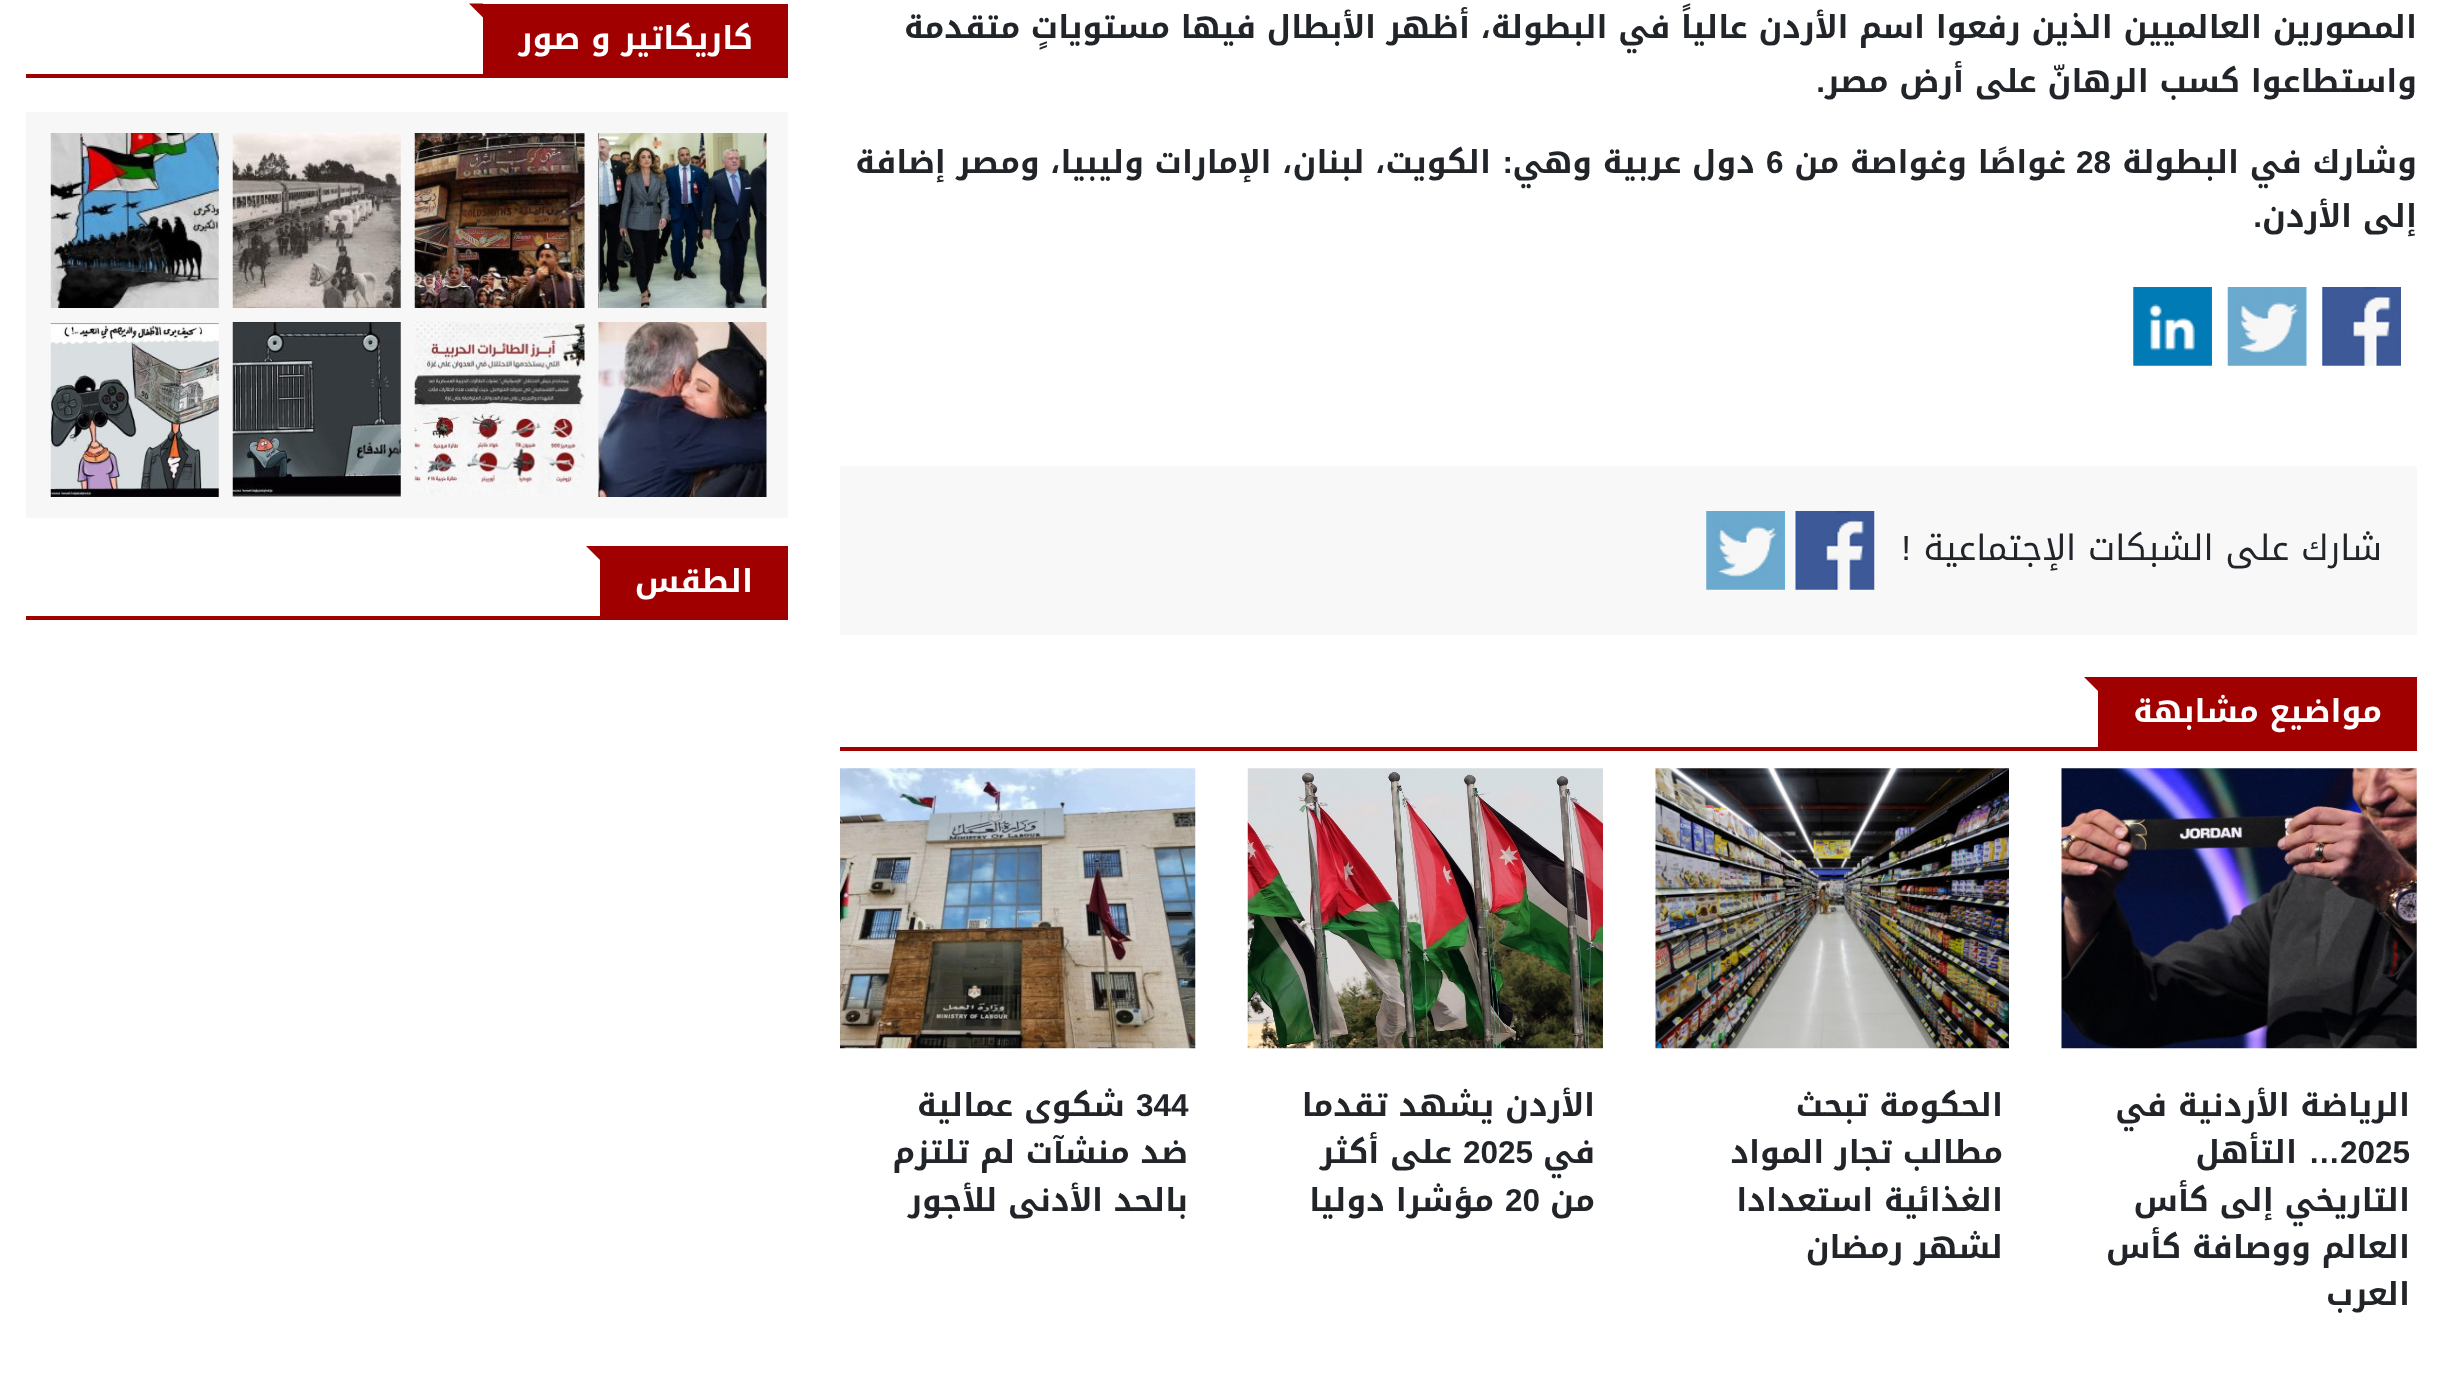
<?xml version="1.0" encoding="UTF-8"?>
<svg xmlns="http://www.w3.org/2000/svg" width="2443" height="1390">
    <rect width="100%" height="100%" fill="#FFFFFF"/>
    <text font-family="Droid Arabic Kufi" font-size="31.5" font-weight="700" direction="rtl" fill="#212529">
        <tspan x="2417" y="38">المصورين العالميين الذين رفعوا اسم الأردن عالياً في البطولة، أظهر الأبطال فيها مستوياتٍ متقدمة</tspan>
        <tspan x="2417" y="92">واستطاعوا كسب الرهانّ على أرض مصر</tspan>
    </text>
    <text x="1825" y="92" font-family="Liberation Sans" font-size="31.5" font-weight="700" direction="rtl" fill="#212529">.</text>
    <text x="2417" y="173" font-family="Droid Arabic Kufi" font-size="31.5" font-weight="700" direction="rtl" fill="#212529">وشارك في البطولة</text>
    <text x="2076" y="173" font-family="Liberation Sans" font-size="31.5" font-weight="700" fill="#212529">28</text>
    <text x="2066" y="173" font-family="Droid Arabic Kufi" font-size="31.5" font-weight="700" direction="rtl" fill="#212529">غواصًا وغواصة من</text>
    <text x="1766" y="173" font-family="Liberation Sans" font-size="31.5" font-weight="700" fill="#212529">6</text>
    <text x="1755" y="173" font-family="Droid Arabic Kufi" font-size="31.5" font-weight="700" direction="rtl" fill="#212529">دول عربية وهي</text>
    <text x="1513" y="173" font-family="Liberation Sans" font-size="31.5" font-weight="700" direction="rtl" fill="#212529">:</text>
    <text x="1491" y="173" font-family="Droid Arabic Kufi" font-size="31.5" font-weight="700" direction="rtl" fill="#212529">الكويت، لبنان، الإمارات وليبيا، ومصر إضافة</text>
    <text x="2417" y="227" font-family="Droid Arabic Kufi" font-size="31.5" font-weight="700" direction="rtl" fill="#212529">إلى الأردن</text>
    <text x="2262" y="227" font-family="Liberation Sans" font-size="31.5" font-weight="700" direction="rtl" fill="#212529">.</text>
    <image x="2322" y="287" width="79" height="79" href="img_01.png"/>
    <image x="2227" y="287" width="80" height="79" href="img_02.png"/>
    <image x="2133" y="287" width="79" height="79" href="img_03.png"/>
    <rect x="840" y="466" width="1577" height="169" fill="#F8F8F8"/>
    <text x="2382" y="560" font-family="Droid Arabic Kufi" font-size="35" direction="rtl" fill="#212529">شارك على الشبكات الإجتماعية</text>
    <text x="1911" y="560" font-family="Liberation Sans" font-size="35" direction="rtl" fill="#212529">!</text>
    <image x="1795" y="511" width="80" height="79" href="img_04.png"/>
    <image x="1706" y="511" width="79" height="79" href="img_05.png"/>
    <rect x="840" y="747" width="1577" height="4" fill="#A00000"/>
    <rect x="2098" y="677" width="319" height="70" fill="#A00000"/>
    <path d="M 2084 677 H 2098 V 691 Z" fill="#A00000"/>
    <text x="2382" y="722" font-family="Droid Arabic Kufi" font-size="31.5" font-weight="700" direction="rtl" fill="#FFFFFF">مواضيع مشابهة</text>
    <image x="2061" y="768" width="356" height="281" href="img_06.png"/>
    <text x="2410" y="1116" font-family="Droid Arabic Kufi" font-size="31.5" font-weight="700" direction="rtl" fill="#212529">الرياضة الأردنية في</text>
    <text x="2340" y="1163" font-family="Liberation Sans" font-size="31.5" font-weight="700" fill="#212529">2025</text>
    <text x="2340" y="1163" font-family="Liberation Sans" font-size="31.5" font-weight="700" direction="rtl" fill="#212529">…</text>
    <text x="2297" y="1163" font-family="Droid Arabic Kufi" font-size="31.5" font-weight="700" direction="rtl" fill="#212529">التأهل</text>
    <text font-family="Droid Arabic Kufi" font-size="31.5" font-weight="700" direction="rtl" fill="#212529">
        <tspan x="2410" y="1211">التاريخي إلى كأس</tspan>
        <tspan x="2410" y="1258">العالم ووصافة كأس</tspan>
        <tspan x="2410" y="1305">العرب</tspan>
    </text>
    <image x="1655" y="768" width="354" height="281" href="img_07.png"/>
    <text font-family="Droid Arabic Kufi" font-size="31.5" font-weight="700" direction="rtl" fill="#212529">
        <tspan x="2003" y="1116">الحكومة تبحث</tspan>
        <tspan x="2003" y="1163">مطالب تجار المواد</tspan>
        <tspan x="2003" y="1211">الغذائية استعدادا</tspan>
        <tspan x="2003" y="1258">لشهر رمضان</tspan>
    </text>
    <image x="1247" y="768" width="356" height="281" href="img_08.png"/>
    <text font-family="Droid Arabic Kufi" font-size="31.5" font-weight="700" direction="rtl" fill="#212529">
        <tspan x="1595" y="1116">الأردن يشهد تقدما</tspan>
        <tspan x="1595" y="1163">في</tspan>
    </text>
    <text x="1463" y="1163" font-family="Liberation Sans" font-size="31.5" font-weight="700" fill="#212529">2025</text>
    <text x="1452" y="1163" font-family="Droid Arabic Kufi" font-size="31.5" font-weight="700" direction="rtl" fill="#212529">على أكثر</text>
    <text x="1595" y="1211" font-family="Droid Arabic Kufi" font-size="31.5" font-weight="700" direction="rtl" fill="#212529">من</text>
    <text x="1505" y="1211" font-family="Liberation Sans" font-size="31.5" font-weight="700" fill="#212529">20</text>
    <text x="1494" y="1211" font-family="Droid Arabic Kufi" font-size="31.5" font-weight="700" direction="rtl" fill="#212529">مؤشرا دوليا</text>
    <image x="840" y="768" width="356" height="281" href="img_09.png"/>
    <text x="1136" y="1116" font-family="Liberation Sans" font-size="31.5" font-weight="700" fill="#212529">344</text>
    <text x="1125" y="1116" font-family="Droid Arabic Kufi" font-size="31.5" font-weight="700" direction="rtl" fill="#212529">شكوى عمالية</text>
    <text font-family="Droid Arabic Kufi" font-size="31.5" font-weight="700" direction="rtl" fill="#212529">
        <tspan x="1188" y="1163">ضد منشآت لم تلتزم</tspan>
        <tspan x="1188" y="1211">بالحد الأدنى للأجور</tspan>
    </text>
    <rect x="26" y="74" width="762" height="4" fill="#A00000"/>
    <rect x="483" y="4" width="305" height="70" fill="#A00000"/>
    <path d="M 469 3.5 H 483 V 17.5 Z" fill="#A00000"/>
    <text x="753" y="49" font-family="Droid Arabic Kufi" font-size="31.5" font-weight="700" direction="rtl" fill="#FFFFFF">كاريكاتير و صور</text>
    <rect x="26" y="112" width="762" height="406" fill="#F7F7F7"/>
    <image x="598" y="133" width="169" height="175" href="img_10.png"/>
    <image x="414" y="133" width="171" height="175" href="img_11.png"/>
    <image x="232" y="133" width="169" height="175" href="img_12.png"/>
    <image x="50" y="133" width="169" height="175" href="img_13.png"/>
    <image x="598" y="322" width="169" height="175" href="img_14.png"/>
    <image x="414" y="322" width="171" height="175" href="img_15.png"/>
    <image x="232" y="322" width="169" height="175" href="img_16.png"/>
    <image x="50" y="322" width="169" height="175" href="img_17.png"/>
    <rect x="26" y="616" width="762" height="4" fill="#A00000"/>
    <rect x="600" y="546" width="188" height="70" fill="#A00000"/>
    <path d="M 586 546 H 600 V 560 Z" fill="#A00000"/>
    <text x="753" y="592" font-family="Droid Arabic Kufi" font-size="31.5" font-weight="700" direction="rtl" fill="#FFFFFF">الطقس</text>
</svg>
